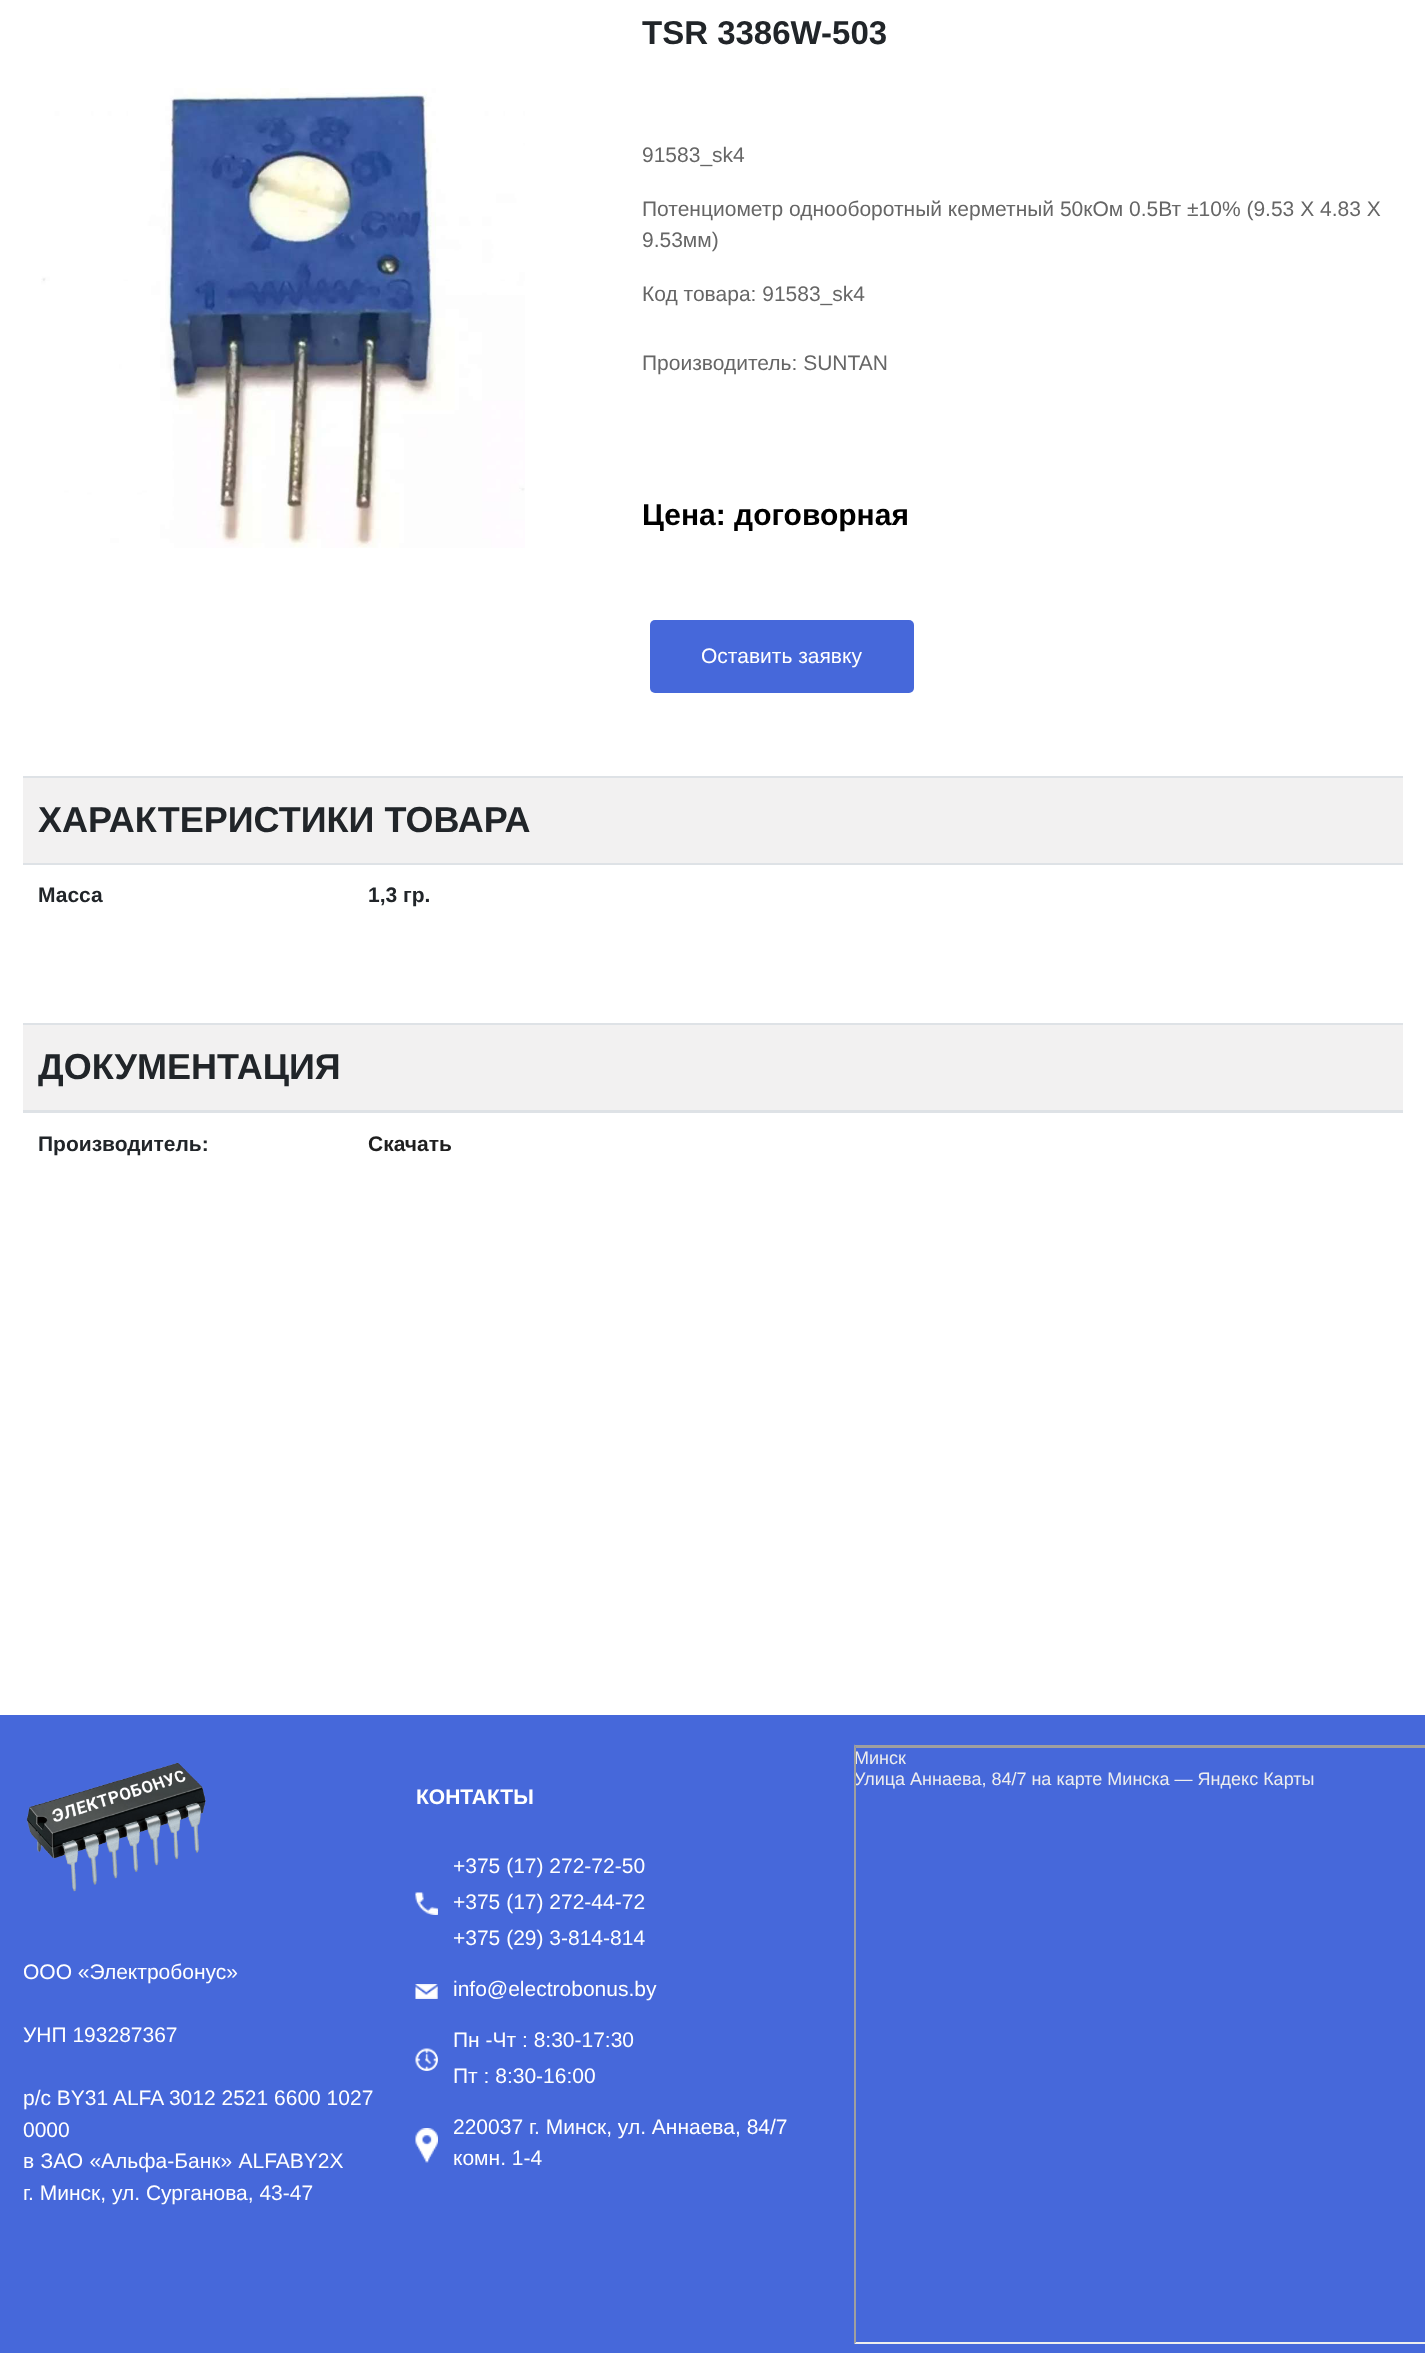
<?xml version="1.0" encoding="UTF-8"?>
<svg xmlns="http://www.w3.org/2000/svg" width="1425" height="2353">
    <defs>
        <clipPath id="clip1"><rect x="854" y="1745" width="571" height="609"/></clipPath>
    </defs>
    <rect width="100%" height="100%" fill="#FFFFFF"/>
    <image x="41" y="88" width="484" height="460" href="img_01.png"/>
    <text x="642" y="44" font-family="Liberation Sans" font-size="33" font-weight="700" fill="#212529">TSR 3386W-503</text>
    <text x="642" y="162" font-family="Liberation Sans" font-size="21" fill="#666666">91583_sk4</text>
    <text font-family="Liberation Sans" font-size="21" fill="#666666">
        <tspan x="642" y="216">Потенциометр однооборотный керметный 50кОм 0.5Вт ±10% (9.53 X 4.83 X</tspan>
        <tspan x="642" y="247">9.53мм)</tspan>
    </text>
    <text x="642" y="301" font-family="Liberation Sans" font-size="21" fill="#666666">Код товара: 91583_sk4</text>
    <text x="642" y="370" font-family="Liberation Sans" font-size="21" fill="#666666">Производитель: SUNTAN</text>
    <text x="642" y="525" font-family="Liberation Sans" font-size="30" font-weight="700" fill="#000000">Цена: договорная</text>
    <rect x="650" y="620" width="264" height="73" rx="5" fill="#4668DA"/>
    <text x="701" y="663" font-family="Liberation Sans" font-size="21" fill="#FFFFFF">Оставить заявку</text>
    <rect x="23" y="778" width="1380" height="85" fill="#F2F1F1"/>
    <rect x="23" y="776" width="1380" height="2" fill="#DEE2E6"/>
    <text x="38" y="832" font-family="Liberation Sans" font-size="36" font-weight="700" fill="#212529">ХАРАКТЕРИСТИКИ ТОВАРА</text>
    <text x="38" y="902" font-family="Liberation Sans" font-size="21" font-weight="700" fill="#212529">Масса</text>
    <rect x="23" y="863" width="1380" height="2" fill="#DEE2E6"/>
    <text x="368" y="902" font-family="Liberation Sans" font-size="21" font-weight="700" fill="#212529">1,3 гр.</text>
    <rect x="23" y="1025" width="1380" height="85" fill="#F2F1F1"/>
    <rect x="23" y="1023" width="1380" height="2" fill="#DEE2E6"/>
    <text x="38" y="1079" font-family="Liberation Sans" font-size="36" font-weight="700" fill="#212529">ДОКУМЕНТАЦИЯ</text>
    <rect x="23" y="1110" width="1380" height="3" fill="#DEE2E6"/>
    <text x="38" y="1151" font-family="Liberation Sans" font-size="21" font-weight="700" fill="#212529">Производитель:</text>
    <text x="368" y="1151" font-family="Liberation Sans" font-size="21" font-weight="700" fill="#1F1F1F">Скачать</text>
    <rect x="0" y="1715" width="1425" height="638" fill="#4668DA"/>
    <g clip-path="url(#clip1)">
        <path d="M 854 1744 H 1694 L 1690 1748 H 856 Z" fill="#9F9F9F"/>
    </g>
    <text font-family="Liberation Sans" font-size="18" fill="#EEEEEE">
        <tspan x="854" y="1764">Минск</tspan>
        <tspan x="854" y="1785">Улица Аннаева, 84/7 на карте Минска — Яндекс Карты</tspan>
    </text>
    <path d="M 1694 2344 H 854 L 856 2342 H 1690 Z" fill="#EEEEEE"/>
    <path d="M 854 2344 V 1744 L 856 1748 V 2342 Z" fill="#9F9F9F"/>
    <image x="26" y="1762" width="180" height="130" href="img_02.png"/>
    <text x="23" y="1979" font-family="Liberation Sans" font-size="21" fill="#FFFFFF">ООО «Электробонус»</text>
    <text x="23" y="2042" font-family="Liberation Sans" font-size="21" fill="#FFFFFF">УНП 193287367</text>
    <text font-family="Liberation Sans" font-size="21" fill="#FFFFFF">
        <tspan x="23" y="2105">р/с BY31 ALFA 3012 2521 6600 1027</tspan>
        <tspan x="23" y="2137">0000</tspan>
        <tspan x="23" y="2168" word-spacing="0.5">в ЗАО «Альфа-Банк» ALFABY2X</tspan>
        <tspan x="23" y="2200">г. Минск, ул. Сурганова, 43-47</tspan>
    </text>
    <text x="416" y="1804" font-family="Liberation Sans" font-size="21" font-weight="700" fill="#FFFFFF">КОНТАКТЫ</text>
    <image x="415" y="1892" width="23" height="23" href="img_03.png"/>
    <text font-family="Liberation Sans" font-size="21" fill="#FFFFFF">
        <tspan x="453" y="1873">+375 (17) 272-72-50</tspan>
        <tspan x="453" y="1909">+375 (17) 272-44-72</tspan>
        <tspan x="453" y="1945">+375 (29) 3-814-814</tspan>
    </text>
    <image x="415" y="1984" width="23" height="15" href="img_04.png"/>
    <text x="453" y="1996" font-family="Liberation Sans" font-size="21" fill="#FFFFFF">info@electrobonus.by</text>
    <image x="415" y="2048" width="23" height="23" href="img_05.png"/>
    <text font-family="Liberation Sans" font-size="21" fill="#FFFFFF">
        <tspan x="453" y="2047">Пн -Чт : 8:30-17:30</tspan>
        <tspan x="453" y="2083">Пт : 8:30-16:00</tspan>
    </text>
    <image x="415" y="2128" width="23" height="35" href="img_06.png"/>
    <text font-family="Liberation Sans" font-size="21" fill="#FFFFFF">
        <tspan x="453" y="2134">220037 г. Минск, ул. Аннаева, 84/7</tspan>
        <tspan x="453" y="2165">комн. 1-4</tspan>
    </text>
</svg>
